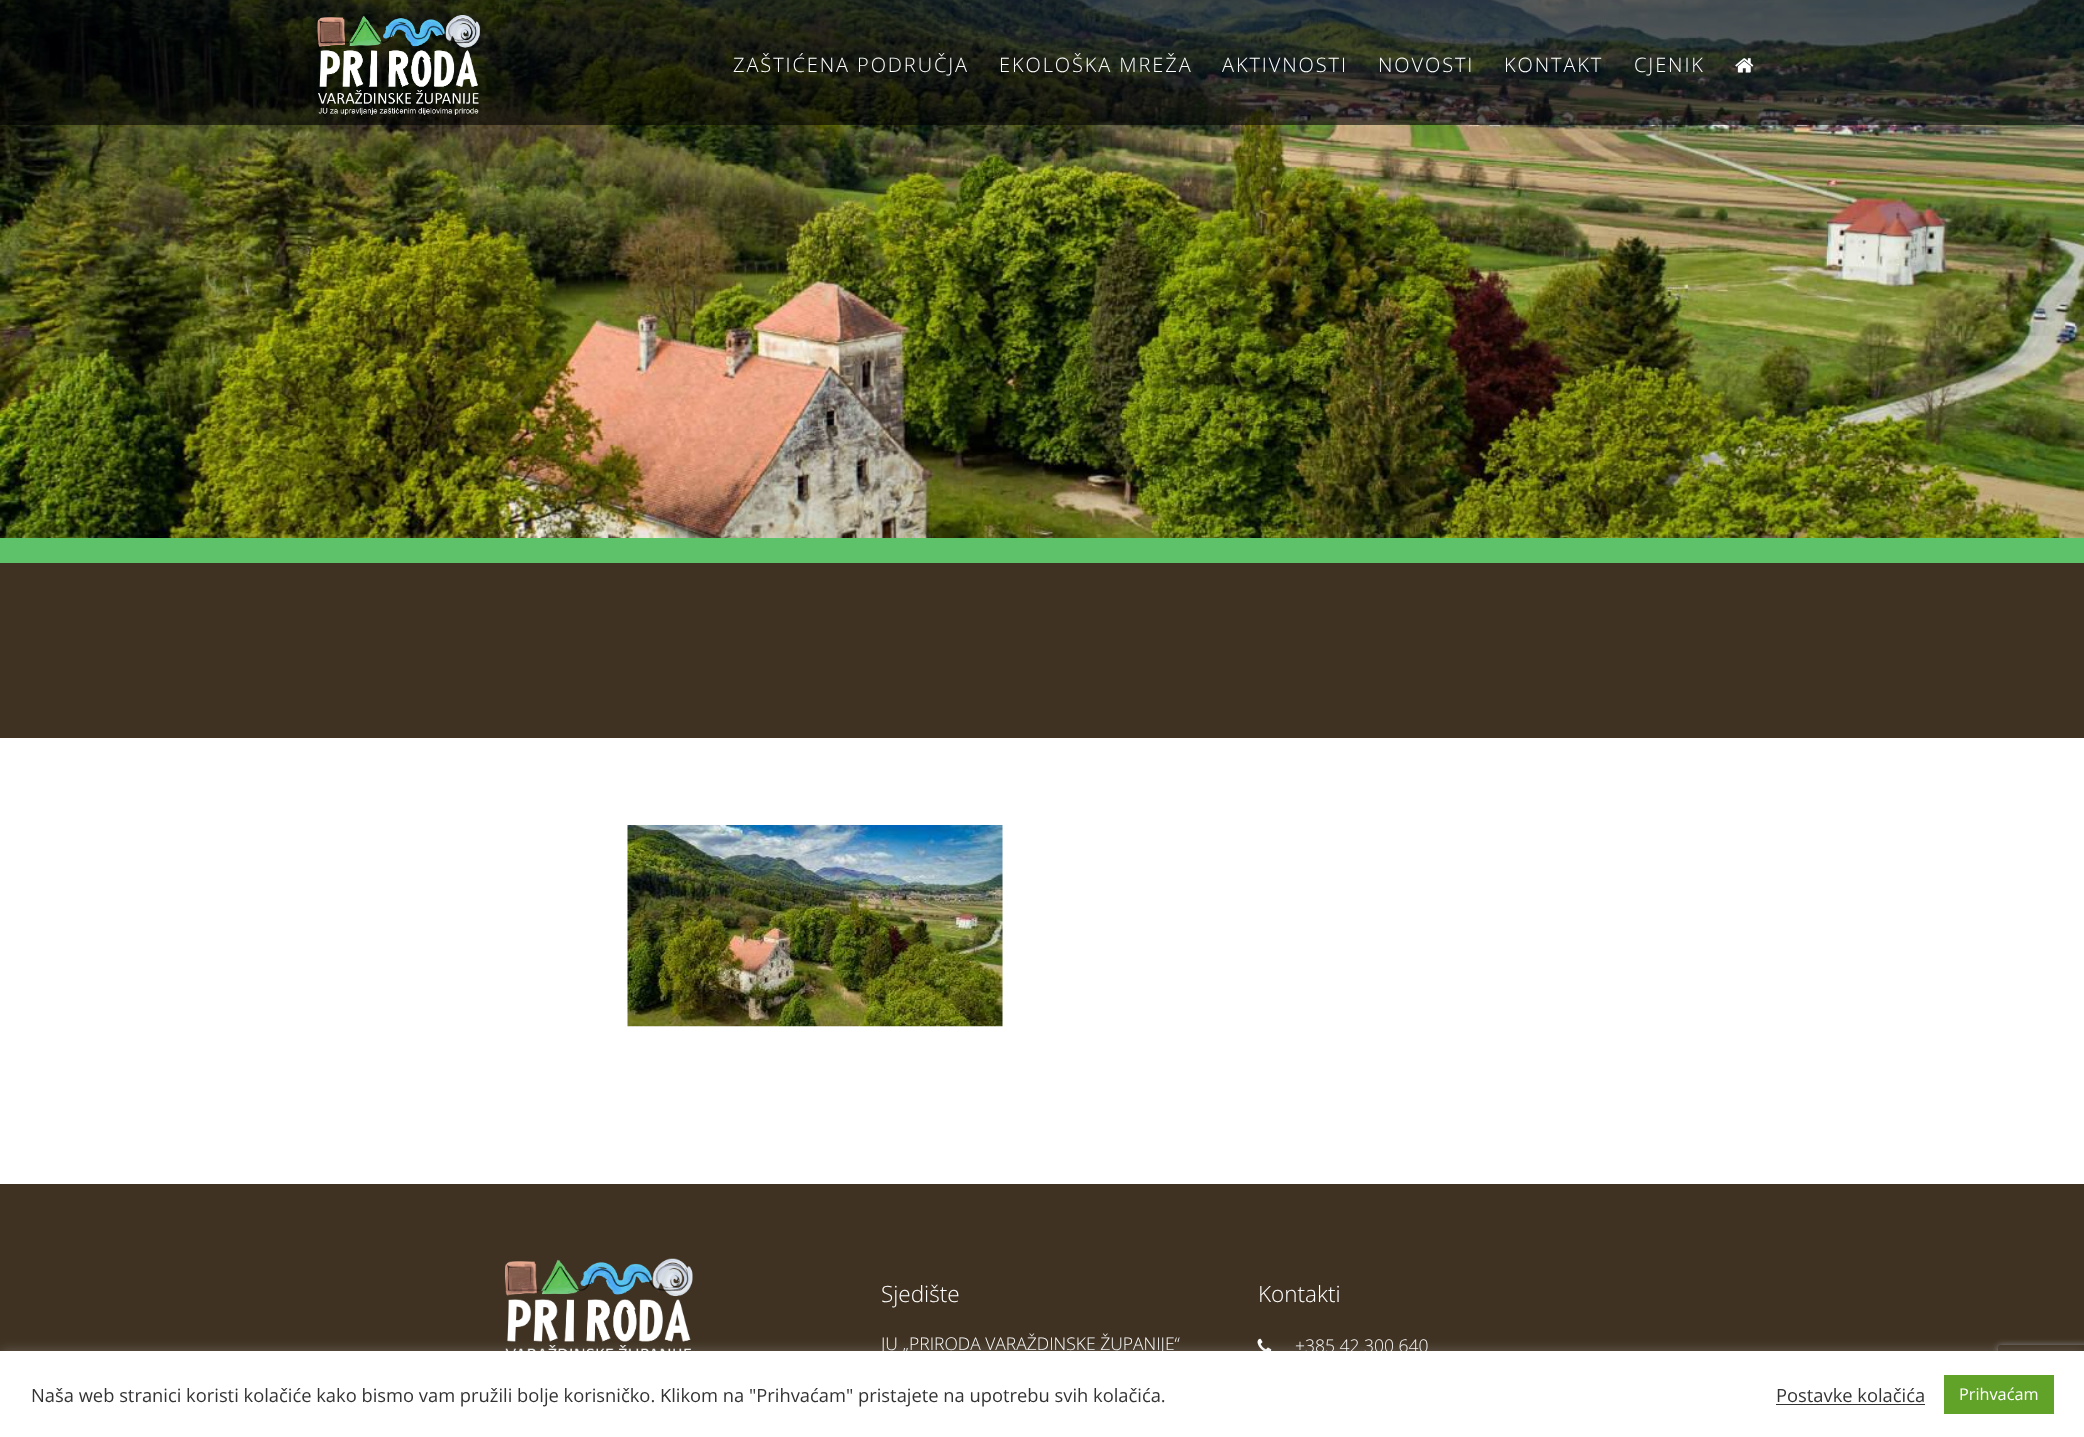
<?xml version="1.0" encoding="UTF-8"?>
<svg xmlns="http://www.w3.org/2000/svg" width="2084" height="1437">
    <defs>
        <clipPath id="clip1"><path d="M 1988 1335 H 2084 V 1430 H 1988 Z M 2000.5 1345 H 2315.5 C 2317 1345 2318 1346 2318 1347.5 V 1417.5 C 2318 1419 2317 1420 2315.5 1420 H 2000.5 C 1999 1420 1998 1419 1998 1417.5 V 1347.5 C 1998 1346 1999 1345 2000.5 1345 Z" clip-rule="evenodd"/></clipPath>
        <filter id="blur1" x="-50%" y="-200%" width="200%" height="500%"><feGaussianBlur stdDeviation="3"/></filter>
        <filter id="blur2" x="-50%" y="-200%" width="200%" height="500%"><feGaussianBlur stdDeviation="6"/></filter>
    </defs>
    <rect width="100%" height="100%" fill="#FFFFFF"/>
    <image x="0" y="0" width="2084" height="538" href="img_01.png"/>
    <rect x="0" y="538" width="2084" height="25" fill="#5EC26A"/>
    <rect x="0" y="563" width="2084" height="175" fill="#3F3222"/>
    <image x="627" y="825" width="376" height="202" href="img_02.png"/>
    <rect x="0" y="0" width="2084" height="125" fill="#000000" fill-opacity="0.6"/>
    <image x="317" y="15" width="163" height="100" href="img_03.png"/>
    <text x="733" y="72" font-family="Open Sans" font-size="20" font-weight="300" letter-spacing="1.9" fill="#FFFFFF">ZAŠTIĆENA PODRUČJA</text>
    <text x="999" y="72" font-family="Open Sans" font-size="20" font-weight="300" letter-spacing="1.9" fill="#FFFFFF">EKOLOŠKA MREŽA</text>
    <text x="1222" y="72" font-family="Open Sans" font-size="20" font-weight="300" letter-spacing="1.9" fill="#FFFFFF">AKTIVNOSTI</text>
    <text x="1378" y="72" font-family="Open Sans" font-size="20" font-weight="300" letter-spacing="1.9" fill="#FFFFFF">NOVOSTI</text>
    <text x="1504" y="72" font-family="Open Sans" font-size="20" font-weight="300" letter-spacing="1.9" fill="#FFFFFF">KONTAKT</text>
    <text x="1634" y="72" font-family="Open Sans" font-size="20" font-weight="300" letter-spacing="1.9" fill="#FFFFFF">CJENIK</text>
    <image x="1735" y="58" width="19" height="15" href="img_04.png"/>
    <rect x="0" y="1184" width="2084" height="167" fill="#3F3222"/>
    <image x="505" y="1258" width="188" height="93" href="img_05.png"/>
    <text x="881" y="1302" font-family="Open Sans" font-size="22.5" font-weight="300" fill="#FFFFFF">Sjedište</text>
    <text x="881" y="1350" font-family="Open Sans" font-size="17.5" font-weight="300" fill="#FFFFFF">JU „PRIRODA VARAŽDINSKE ŽUPANIJE“</text>
    <text x="1258" y="1302" font-family="Open Sans" font-size="22.5" font-weight="300" fill="#FFFFFF">Kontakti</text>
    <image x="1257" y="1338" width="15" height="13" href="img_06.png"/>
    <text x="1295" y="1352" font-family="Open Sans" font-size="17.5" font-weight="300" fill="#FFFFFF">+385 42 300 640</text>
    <g clip-path="url(#clip1)">
        <rect x="1998" y="1345" width="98" height="75" rx="2.5" fill="#808080" filter="url(#blur1)"/>
    </g>
    <rect x="0" y="1350" width="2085" height="86" fill="#ACABAB" fill-opacity="0.3" filter="url(#blur2)"/>
    <rect x="0" y="1351" width="2084" height="86" fill="#FFFFFF"/>
    <text x="31" y="1402" font-family="Open Sans" font-size="18.33" fill="#333333">Naša web stranici koristi kolačiće kako bismo vam pružili bolje korisničko. Klikom na "Prihvaćam" pristajete na upotrebu svih kolačića.</text>
    <text x="1776" y="1402" font-family="Open Sans" font-size="18.33" fill="#333333">Postavke kolačića</text>
    <rect x="1776" y="1404" width="149" height="1" fill="#333333"/>
    <rect x="1944" y="1375" width="110" height="39" fill="#61A229"/>
    <text x="1959" y="1400" font-family="Open Sans" font-size="16.25" fill="#FFFFFF">Prihvaćam</text>
</svg>
